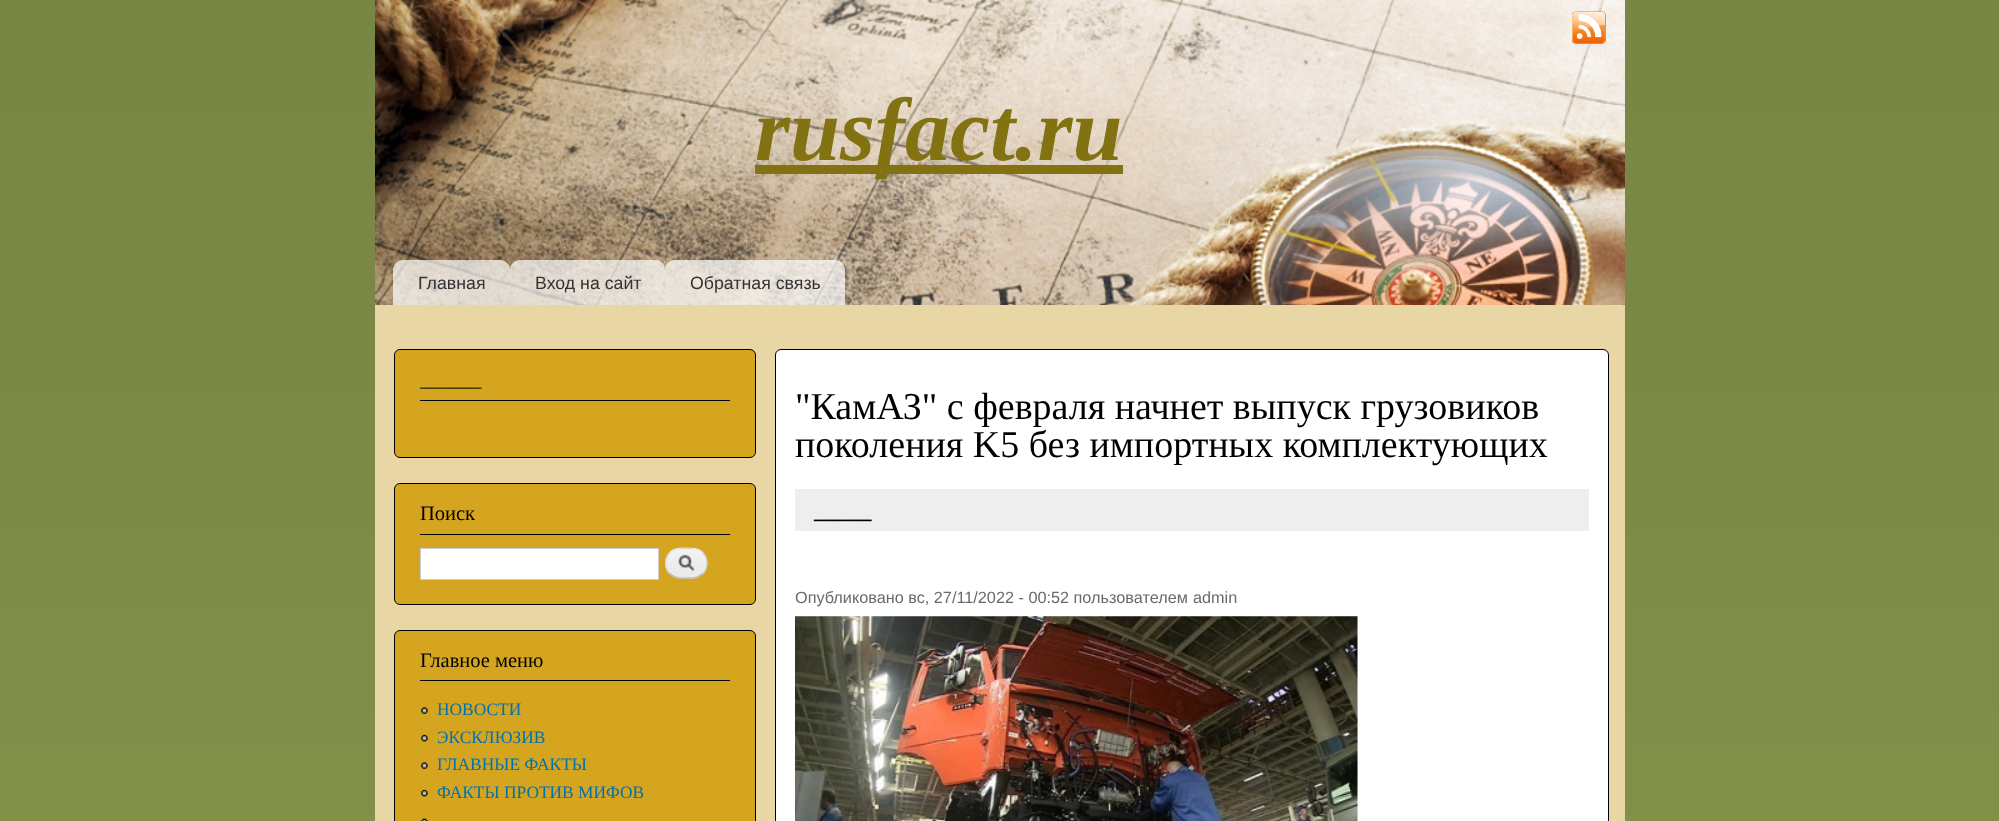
<?xml version="1.0" encoding="UTF-8"?>
<svg xmlns="http://www.w3.org/2000/svg" width="1999" height="821">
    <rect width="100%" height="100%" fill="#C9DF72"/>
    <image x="0" y="0" width="1999" height="821" href="img_01.png"/>
    <rect x="375" y="305" width="1250" height="516" fill="#E9D6A5"/>
    <image x="375" y="0" width="1250" height="305" href="img_02.png"/>
    <image x="1572" y="11" width="34" height="33" href="img_03.png"/>
    <rect x="755" y="165" width="368" height="9" fill="#827212"/>
    <text x="755" y="160" font-family="Liberation Serif" font-size="90" font-weight="700" font-style="italic" fill="#827212">rusfact.ru</text>
    <path d="M 403 260 H 500 C 505.5 260 510 264.5 510 270 V 305 H 393 V 270 C 393 264.5 397.5 260 403 260 Z" fill="#FFFFFF" fill-opacity="0.7"/>
    <text x="418" y="289" font-family="Liberation Sans" font-size="17.75" fill="#333333">Главная</text>
    <path d="M 520 260 H 655 C 660.5 260 665 264.5 665 270 V 305 H 510 V 270 C 510 264.5 514.5 260 520 260 Z" fill="#FFFFFF" fill-opacity="0.7"/>
    <text x="535" y="289" font-family="Liberation Sans" font-size="17.75" fill="#333333">Вход на сайт</text>
    <path d="M 675 260 H 835 C 840.5 260 845 264.5 845 270 V 305 H 665 V 270 C 665 264.5 669.5 260 675 260 Z" fill="#FFFFFF" fill-opacity="0.7"/>
    <text x="690" y="289" font-family="Liberation Sans" font-size="17.75" fill="#333333">Обратная связь</text>
    <rect x="394.5" y="349.5" width="361" height="108" rx="5.5" fill="#D6A51F" stroke="#000000"/>
    <rect x="420" y="400" width="310" height="1" fill="#000000"/>
    <text x="420" y="386" font-family="Liberation Serif" font-size="20.5" fill="#000000">______</text>
    <rect x="394.5" y="483.5" width="361" height="121" rx="5.5" fill="#D6A51F" stroke="#000000"/>
    <rect x="420" y="534" width="310" height="1" fill="#000000"/>
    <text x="420" y="520" font-family="Liberation Serif" font-size="20.5" fill="#000000">Поиск</text>
    <rect x="420.5" y="548.5" width="238" height="31" fill="#FFFFFF" stroke="#CCCCCC"/>
    <image x="665" y="548" width="43" height="31" href="img_04.png"/>
    <path d="M 670 552.5 C 674.5 548 680 548 686 548 C 692.5 548 698 548 702.5 552.5" fill="none" stroke="#E4E4E4" stroke-width="1.2"/>
    <path d="M 702.5 552.5 C 708.5 558.5 708.5 568 702.5 573.5" fill="none" stroke="#D2D2D2" stroke-width="1.2"/>
    <path d="M 702.5 573.5 C 698 578.5 692.5 578 686 578 C 680 578 674.5 578.5 670 573.5" fill="none" stroke="#B4B4B4" stroke-width="1.2"/>
    <path d="M 670 573.5 C 664 568 664 558.5 670 552.5" fill="none" stroke="#D2D2D2" stroke-width="1.2"/>
    <rect x="394.5" y="630.5" width="361" height="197" rx="5.5" fill="#D6A51F" stroke="#000000"/>
    <rect x="420" y="680" width="310" height="1" fill="#000000"/>
    <text x="420" y="667" font-family="Liberation Serif" font-size="20.5" fill="#000000">Главное меню</text>
    <image x="421" y="707" width="7" height="7" href="img_05.png"/>
    <text x="437" y="715" font-family="Liberation Serif" font-size="17.4" fill="#0071B3">НОВОСТИ</text>
    <image x="421" y="734" width="7" height="8" href="img_06.png"/>
    <text x="437" y="743" font-family="Liberation Serif" font-size="17.4" fill="#0071B3">ЭКСКЛЮЗИВ</text>
    <image x="421" y="762" width="7" height="7" href="img_05.png"/>
    <text x="437" y="770" font-family="Liberation Serif" font-size="17.4" fill="#0071B3">ГЛАВНЫЕ ФАКТЫ</text>
    <image x="421" y="789" width="7" height="8" href="img_06.png"/>
    <text x="437" y="798" font-family="Liberation Serif" font-size="17.4" fill="#0071B3">ФАКТЫ ПРОТИВ МИФОВ</text>
    <image x="421" y="818" width="7" height="3" href="img_07.png"/>
    <rect x="775.5" y="349.5" width="833" height="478" rx="5.5" fill="#FFFFFF" stroke="#000000"/>
    <text font-family="Liberation Serif" font-size="38" fill="#000000">
        <tspan x="795" y="419">"КамАЗ" с февраля начнет выпуск грузовиков</tspan>
        <tspan x="795" y="457">поколения K5 без импортных комплектующих</tspan>
    </text>
    <rect x="795" y="489" width="794" height="42" fill="#EEEEEE"/>
    <text x="814" y="518" font-family="Liberation Serif" font-size="23" font-weight="700" fill="#000000">_____</text>
    <text x="795" y="603" font-family="Liberation Sans" font-size="16.25" fill="#68696B">Опубликовано вс, 27/11/2022 - 00:52 пользователем</text>
    <text x="1193" y="603" font-family="Liberation Sans" font-size="16.25" fill="#68696B">admin</text>
    <image x="795" y="616" width="563" height="205" href="img_08.png"/>
</svg>
